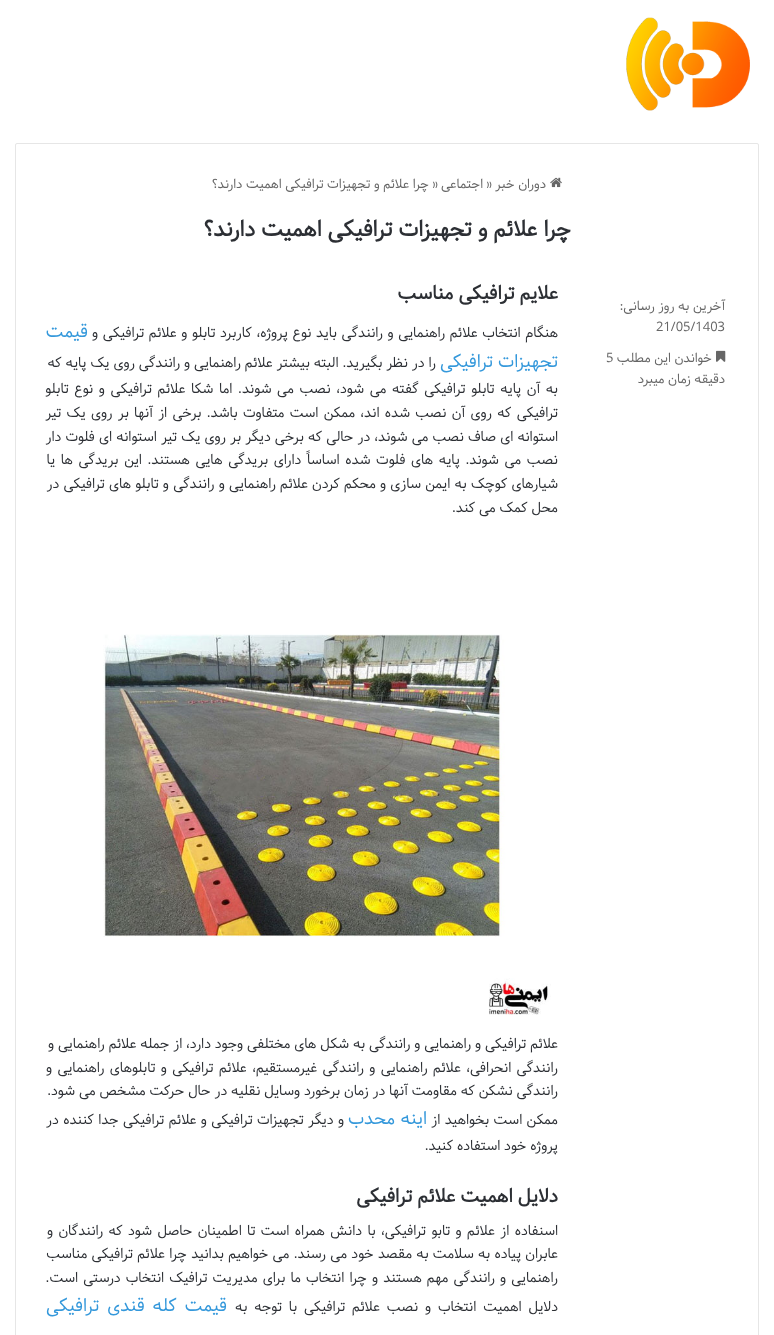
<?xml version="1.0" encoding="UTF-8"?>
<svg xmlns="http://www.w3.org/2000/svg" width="774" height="1335">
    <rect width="100%" height="100%" fill="#FFFFFF"/>
    <image x="626" y="17" width="124" height="94" href="img_01.png"/>
    <rect x="15.5" y="143.5" width="743" height="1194" rx="1.5" fill="none" stroke="#E6E6E6"/>
    <image x="550" y="177" width="12" height="11" href="img_02.png"/>
    <text x="546" y="188" font-family="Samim" font-size="13" direction="rtl" fill="#666666">دوران خبر</text>
    <text x="486" y="188" font-family="Samim" font-size="13" fill="#666666">»</text>
    <text x="483" y="188" font-family="Samim" font-size="13" direction="rtl" fill="#666666">اجتماعی</text>
    <text x="432" y="188" font-family="Samim" font-size="13" fill="#666666">»</text>
    <text x="429" y="188" font-family="Samim" font-size="13" direction="rtl" fill="#666666">چرا علائم و تجهیزات ترافیکی اهمیت دارند؟</text>
    <text x="571" y="236" font-family="Samim" font-size="22" font-weight="700" direction="rtl" fill="#2C2F34">چرا علائم و تجهیزات ترافیکی اهمیت دارند؟</text>
    <text x="725" y="310" font-family="Samim" font-size="13" direction="rtl" fill="#666666">آخرین به روز رسانی:</text>
    <text x="656" y="331" font-family="Samim" font-size="13" fill="#666666">21/05/1403</text>
    <image x="716" y="350" width="10" height="12" href="img_03.png"/>
    <text x="712" y="362" font-family="Samim" font-size="13" direction="rtl" fill="#666666">خواندن این مطلب</text>
    <text x="606" y="362" font-family="Samim" font-size="13" fill="#666666">5</text>
    <text x="725" y="383" font-family="Samim" font-size="13" direction="rtl" fill="#666666">دقیقه زمان میبرد</text>
    <text x="558" y="299" font-family="Samim" font-size="19" font-weight="700" direction="rtl" fill="#2C2F34">علایم ترافیکی مناسب</text>
    <text x="558" y="337" word-spacing="0.75" font-family="Samim" font-size="14" direction="rtl" fill="#2C2F34">هنگام انتخاب علائم راهنمایی و رانندگی باید نوع پروژه، کاربرد تابلو و علائم ترافیکی و</text>
    <text x="88" y="337" font-family="Samim" font-size="18" direction="rtl" fill="#3498DB">قیمت</text>
    <text x="558" y="367" font-family="Samim" font-size="18" direction="rtl" fill="#3498DB">تجهیزات ترافیکی</text>
    <text x="436" y="367" font-family="Samim" font-size="14" direction="rtl" fill="#2C2F34">را در نظر بگیرید. البته بیشتر علائم راهنمایی و رانندگی روی یک پایه که</text>
    <text font-family="Samim" font-size="14" direction="rtl" fill="#2C2F34">
        <tspan x="558" y="393" word-spacing="1.75">به آن پایه تابلو ترافیکی گفته می شود، نصب می شوند. اما شکا علائم ترافیکی و نوع تابلو</tspan>
        <tspan x="558" y="417" word-spacing="1.4">ترافیکی که روی آن نصب شده اند، ممکن است متفاوت باشد. برخی از آنها بر روی یک تیر</tspan>
        <tspan x="558" y="441" word-spacing="0.25">استوانه ای صاف نصب می شوند، در حالی که برخی دیگر بر روی یک تیر استوانه ای فلوت دار</tspan>
        <tspan x="558" y="464" word-spacing="1.75">نصب می شوند. پایه های فلوت شده اساساً دارای بریدگی هایی هستند. این بریدگی ها یا</tspan>
        <tspan x="558" y="488" word-spacing="0.3">شیارهای کوچک به ایمن سازی و محکم کردن علائم راهنمایی و رانندگی و تابلو های ترافیکی در</tspan>
        <tspan x="558" y="512">محل کمک می کند.</tspan>
    </text>
    <image x="103" y="634" width="448" height="381" href="img_04.png"/>
    <text font-family="Samim" font-size="14" direction="rtl" fill="#2C2F34">
        <tspan x="558" y="1048">علائم ترافیکی و راهنمایی و رانندگی به شکل های مختلفی وجود دارد، از جمله علائم راهنمایی و</tspan>
        <tspan x="558" y="1072" word-spacing="1.5">رانندگی انحرافی، علائم راهنمایی و رانندگی غیرمستقیم، علائم ترافیکی و تابلوهای راهنمایی و</tspan>
        <tspan x="558" y="1095">رانندگی نشکن که مقاومت آنها در زمان برخورد وسایل نقلیه در حال حرکت مشخص می شود.</tspan>
    </text>
    <text x="558" y="1124" word-spacing="0.5" font-family="Samim" font-size="14" direction="rtl" fill="#2C2F34">ممکن است بخواهید از</text>
    <text x="427" y="1124" word-spacing="0.5" font-family="Samim" font-size="18" direction="rtl" fill="#3498DB">اینه محدب</text>
    <text x="344" y="1124" word-spacing="0.5" font-family="Samim" font-size="14" direction="rtl" fill="#2C2F34">و دیگر تجهیزات ترافیکی و علائم ترافیکی جدا کننده در</text>
    <text x="558" y="1150" font-family="Samim" font-size="14" direction="rtl" fill="#2C2F34">پروژه خود استفاده کنید.</text>
    <text x="558" y="1202" font-family="Samim" font-size="19" font-weight="700" direction="rtl" fill="#2C2F34">دلایل اهمیت علائم ترافیکی</text>
    <text font-family="Samim" font-size="14" direction="rtl" fill="#2C2F34">
        <tspan x="558" y="1235" word-spacing="1.5">اسنفاده از علائم و تابو ترافیکی، با دانش همراه است تا اطمینان حاصل شود که رانندگان و</tspan>
        <tspan x="558" y="1258" word-spacing="0.4">عابران پیاده به سلامت به مقصد خود می رسند. می خواهیم بدانید چرا علائم ترافیکی مناسب</tspan>
        <tspan x="558" y="1282" word-spacing="1.2">راهنمایی و رانندگی مهم هستند و چرا انتخاب ما برای مدیریت ترافیک انتخاب درستی است.</tspan>
    </text>
    <text x="558" y="1311" word-spacing="3" font-family="Samim" font-size="14" direction="rtl" fill="#2C2F34">دلایل اهمیت انتخاب و نصب علائم ترافیکی با توجه به</text>
    <text x="227" y="1311" word-spacing="3" font-family="Samim" font-size="18" direction="rtl" fill="#3498DB">قیمت کله قندی ترافیکی</text>
</svg>
